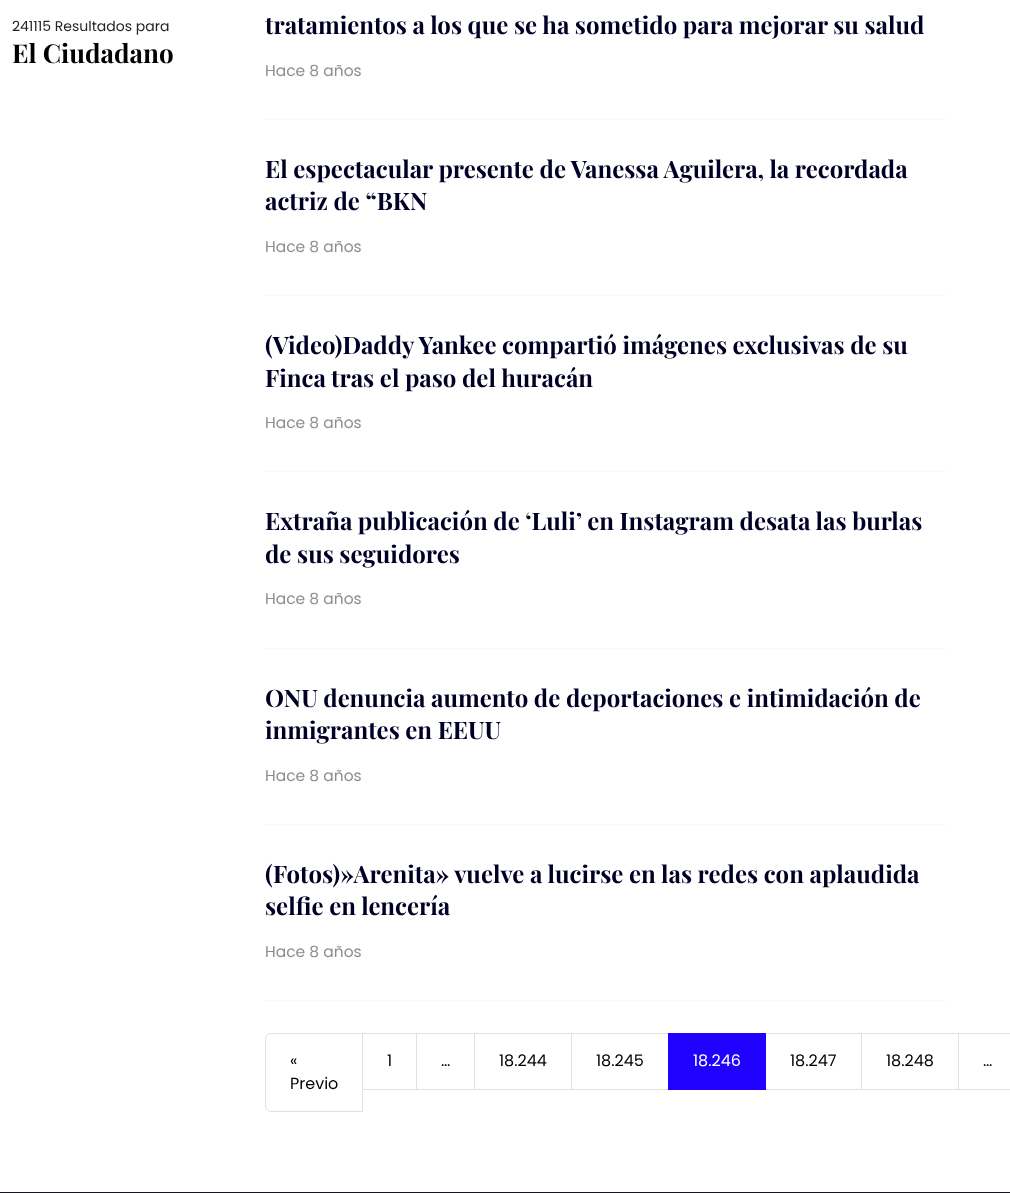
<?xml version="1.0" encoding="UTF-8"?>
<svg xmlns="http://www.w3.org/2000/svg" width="1010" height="1193">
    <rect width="100%" height="100%" fill="#FFFFFF"/>
    <text x="12" y="31" font-family="Poppins" font-size="14" fill="#212529">241115 Resultados para</text>
    <text x="12" y="63" font-family="Playfair Display" font-size="26" font-weight="700" fill="#000000">El Ciudadano</text>
    <text x="265" y="34" font-family="Playfair Display" font-size="24" font-weight="700" fill="#000026">tratamientos a los que se ha sometido para mejorar su salud</text>
    <text x="265" y="76" font-family="Poppins" font-size="15.5" fill="#8A8D93">Hace 8 años</text>
    <rect x="265" y="119" width="683" height="1" fill="#F9F9F9"/>
    <text font-family="Playfair Display" font-size="24" font-weight="700" fill="#000026">
        <tspan x="265" y="178">El espectacular presente de Vanessa Aguilera, la recordada</tspan>
        <tspan x="265" y="210">actriz de “BKN</tspan>
    </text>
    <text x="265" y="252" font-family="Poppins" font-size="15.5" fill="#8A8D93">Hace 8 años</text>
    <rect x="265" y="295" width="683" height="1" fill="#F9F9F9"/>
    <text font-family="Playfair Display" font-size="24" font-weight="700" fill="#000026">
        <tspan x="265" y="354">(Video)Daddy Yankee compartió imágenes exclusivas de su</tspan>
        <tspan x="265" y="387">Finca tras el paso del huracán</tspan>
    </text>
    <text x="265" y="428" font-family="Poppins" font-size="15.5" fill="#8A8D93">Hace 8 años</text>
    <rect x="265" y="471" width="683" height="1" fill="#F9F9F9"/>
    <text font-family="Playfair Display" font-size="24" font-weight="700" fill="#000026">
        <tspan x="265" y="530">Extraña publicación de ‘Luli’ en Instagram desata las burlas</tspan>
        <tspan x="265" y="563">de sus seguidores</tspan>
    </text>
    <text x="265" y="604" font-family="Poppins" font-size="15.5" fill="#8A8D93">Hace 8 años</text>
    <rect x="265" y="648" width="683" height="1" fill="#F9F9F9"/>
    <text font-family="Playfair Display" font-size="24" font-weight="700" fill="#000026">
        <tspan x="265" y="707">ONU denuncia aumento de deportaciones e intimidación de</tspan>
        <tspan x="265" y="739">inmigrantes en EEUU</tspan>
    </text>
    <text x="265" y="781" font-family="Poppins" font-size="15.5" fill="#8A8D93">Hace 8 años</text>
    <rect x="265" y="824" width="683" height="1" fill="#F9F9F9"/>
    <text font-family="Playfair Display" font-size="24" font-weight="700" fill="#000026">
        <tspan x="265" y="883">(Fotos)»Arenita» vuelve a lucirse en las redes con aplaudida</tspan>
        <tspan x="265" y="915">selfie en lencería</tspan>
    </text>
    <text x="265" y="957" font-family="Poppins" font-size="15.5" fill="#8A8D93">Hace 8 años</text>
    <rect x="265" y="1000" width="683" height="1" fill="#F9F9F9"/>
    <path d="M 271 1033.5 H 362.5 V 1111.5 H 271 C 268 1111.5 265.5 1109 265.5 1106 V 1039 C 265.5 1036 268 1033.5 271 1033.5 Z" fill="none" stroke="#DEE2E6"/>
    <text font-family="Poppins" font-size="16" fill="#000000">
        <tspan x="290" y="1066">«</tspan>
        <tspan x="290" y="1089">Previo</tspan>
    </text>
    <rect x="362.5" y="1033.5" width="54" height="56" fill="none" stroke="#DEE2E6"/>
    <text x="387" y="1066" font-family="Poppins" font-size="16" fill="#000000">1</text>
    <rect x="416.5" y="1033.5" width="58" height="56" fill="none" stroke="#DEE2E6"/>
    <text x="441" y="1066" font-family="Poppins" font-size="16" fill="#000000">…</text>
    <rect x="474.5" y="1033.5" width="97" height="56" fill="none" stroke="#DEE2E6"/>
    <text x="499" y="1066" font-family="Poppins" font-size="16" fill="#000000">18.244</text>
    <rect x="571.5" y="1033.5" width="97" height="56" fill="none" stroke="#DEE2E6"/>
    <text x="596" y="1066" font-family="Poppins" font-size="16" fill="#000000">18.245</text>
    <rect x="765.5" y="1033.5" width="96" height="56" fill="none" stroke="#DEE2E6"/>
    <rect x="668" y="1033" width="98" height="57" fill="#2000FF"/>
    <text x="693" y="1066" font-family="Poppins" font-size="16" fill="#FFFFFF">18.246</text>
    <text x="790" y="1066" font-family="Poppins" font-size="16" fill="#000000">18.247</text>
    <rect x="861.5" y="1033.5" width="97" height="56" fill="none" stroke="#DEE2E6"/>
    <text x="886" y="1066" font-family="Poppins" font-size="16" fill="#000000">18.248</text>
    <rect x="958.5" y="1033.5" width="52" height="56" fill="none" stroke="#DEE2E6"/>
    <text x="983" y="1066" font-family="Poppins" font-size="16" fill="#000000">…</text>
    <rect x="0" y="1192" width="1010" height="1" fill="#16141F"/>
</svg>
